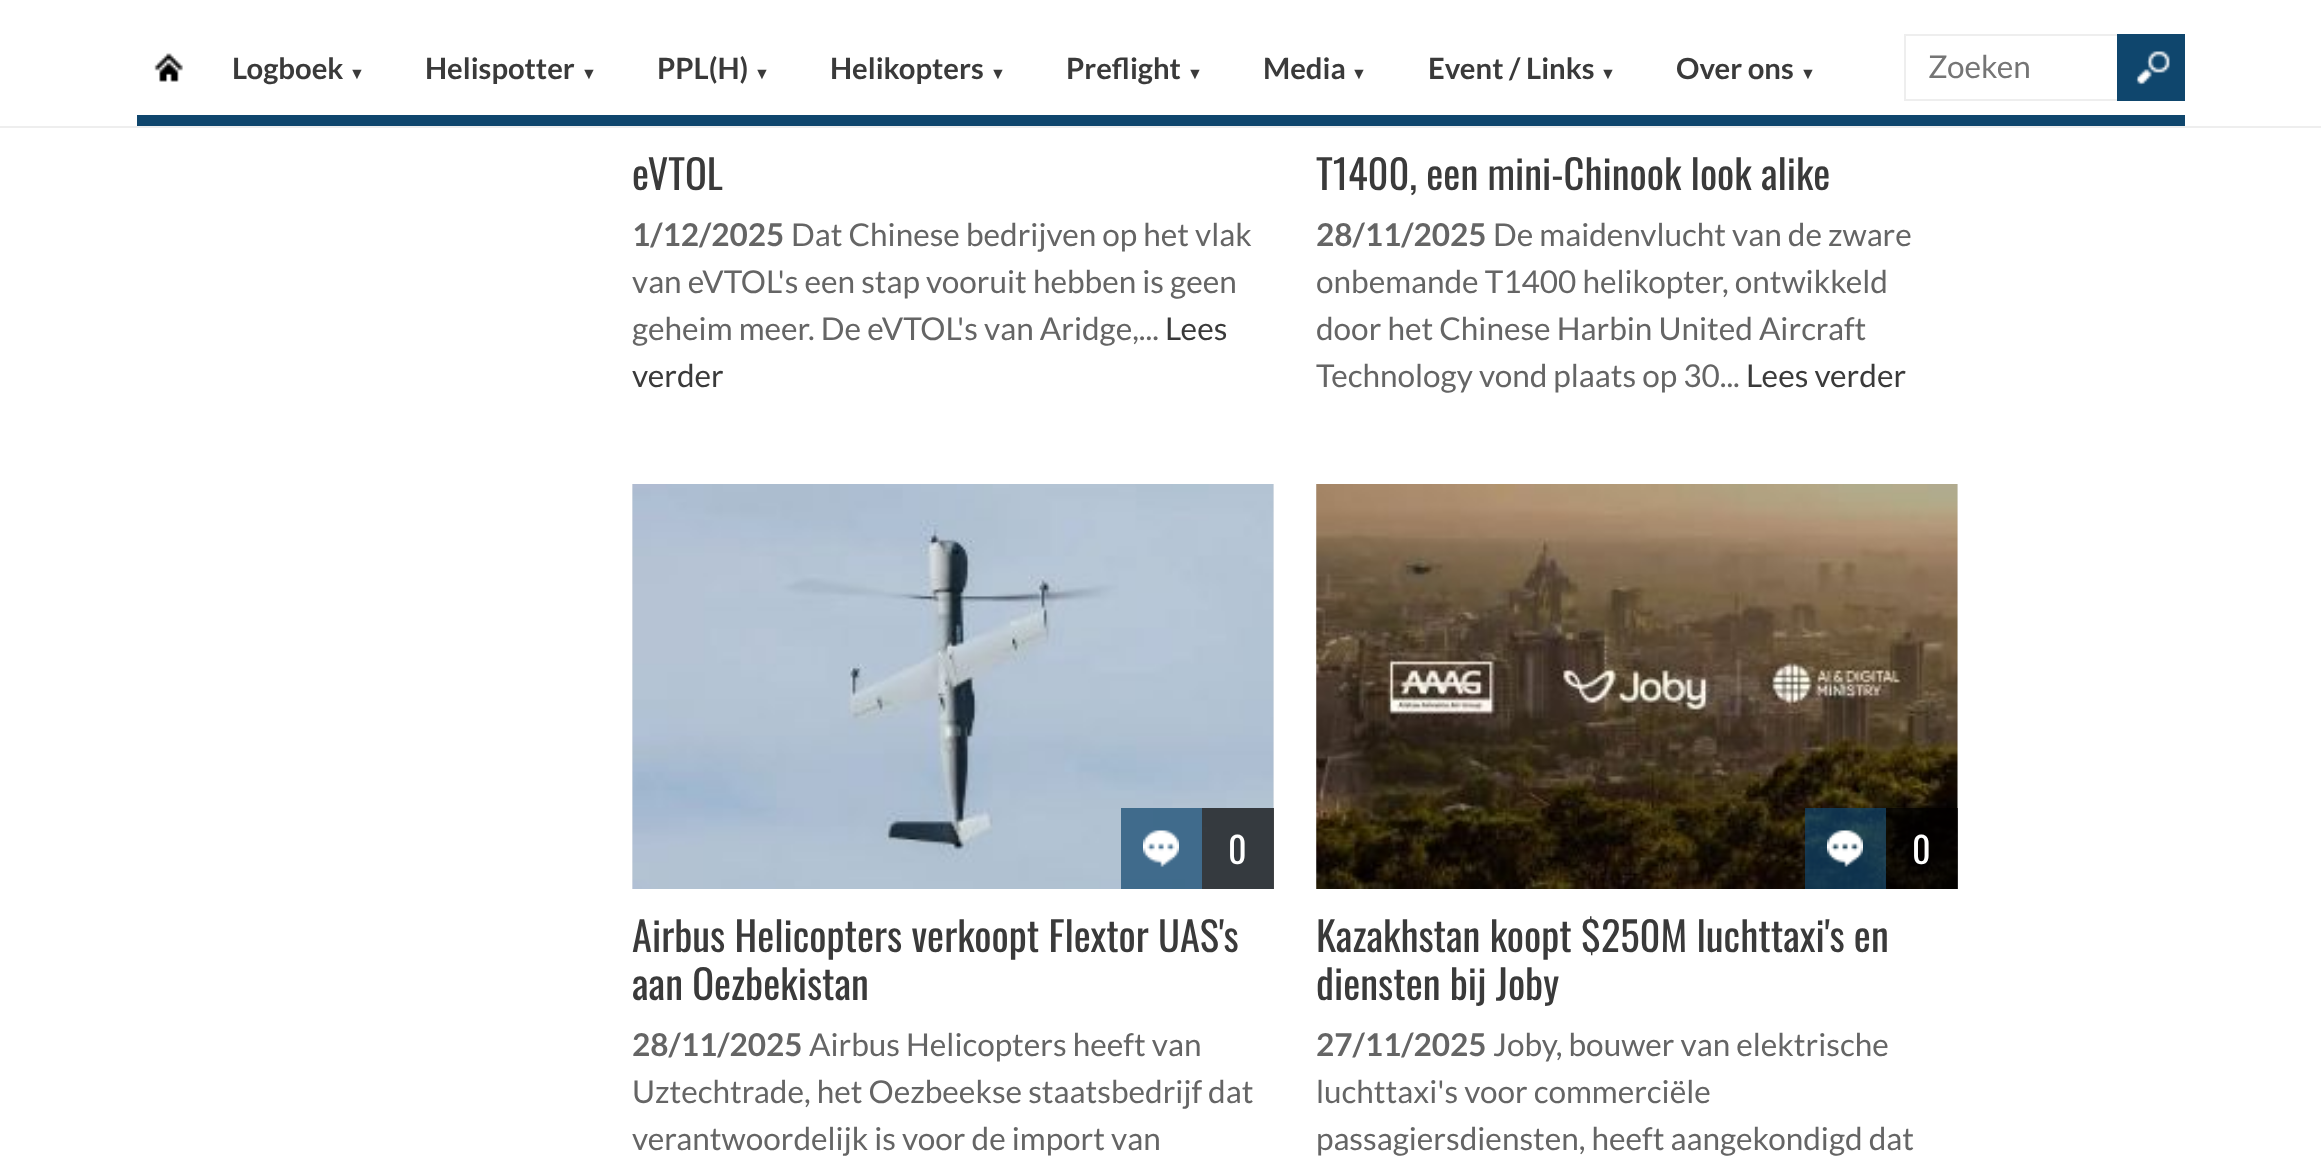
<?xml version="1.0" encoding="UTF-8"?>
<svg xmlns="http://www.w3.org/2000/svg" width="2321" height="1158">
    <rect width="100%" height="100%" fill="#FFFFFF"/>
    <rect x="0" y="126" width="2321" height="2" fill="#EEEEEE"/>
    <rect x="137" y="115" width="2048" height="11" fill="#0F466D"/>
    <image x="154" y="53" width="29" height="29" href="img_01.png"/>
    <text x="232" y="79" font-family="Lato" font-size="29.25" font-weight="700" fill="#3A3A3A">Logboek</text>
    <text x="349" y="79" font-family="Liberation Sans" font-size="16" font-weight="700" fill="#3A3A3A">▼</text>
    <text x="425" y="79" font-family="Lato" font-size="29.25" font-weight="700" fill="#3A3A3A">Helispotter</text>
    <text x="581" y="79" font-family="Liberation Sans" font-size="16" font-weight="700" fill="#3A3A3A">▼</text>
    <text x="657" y="79" font-family="Lato" font-size="29.25" font-weight="700" fill="#3A3A3A">PPL(H)</text>
    <text x="754" y="79" font-family="Liberation Sans" font-size="16" font-weight="700" fill="#3A3A3A">▼</text>
    <text x="830" y="79" font-family="Lato" font-size="29.25" font-weight="700" fill="#3A3A3A">Helikopters</text>
    <text x="990" y="79" font-family="Liberation Sans" font-size="16" font-weight="700" fill="#3A3A3A">▼</text>
    <text x="1066" y="79" font-family="Lato" font-size="29.25" font-weight="700" fill="#3A3A3A">Preflight</text>
    <text x="1187" y="79" font-family="Liberation Sans" font-size="16" font-weight="700" fill="#3A3A3A">▼</text>
    <text x="1263" y="79" font-family="Lato" font-size="29.25" font-weight="700" fill="#3A3A3A">Media</text>
    <text x="1351" y="79" font-family="Liberation Sans" font-size="16" font-weight="700" fill="#3A3A3A">▼</text>
    <text x="1428" y="79" font-family="Lato" font-size="29.25" font-weight="700" fill="#3A3A3A">Event / Links</text>
    <text x="1600" y="79" font-family="Liberation Sans" font-size="16" font-weight="700" fill="#3A3A3A">▼</text>
    <text x="1676" y="79" font-family="Lato" font-size="29.25" font-weight="700" fill="#3A3A3A">Over ons</text>
    <text x="1800" y="79" font-family="Liberation Sans" font-size="16" font-weight="700" fill="#3A3A3A">▼</text>
    <rect x="1904" y="34" width="213" height="2" fill="#EEEEEE"/>
    <rect x="1904" y="99" width="213" height="2" fill="#EEEEEE"/>
    <rect x="1904" y="34" width="2" height="67" fill="#EEEEEE"/>
    <text x="1928" y="78" font-family="Lato" font-size="31.5" fill="#757575">Zoeken</text>
    <rect x="2117" y="34" width="68" height="67" fill="#0F466D"/>
    <image x="2135" y="51" width="35" height="35" href="img_02.png"/>
    <text x="632" y="190" font-family="Oswald" font-size="40.5" fill="#3A3A3A">eVTOL</text>
    <text x="632" y="246" font-family="Lato" font-size="31.5" font-weight="700" fill="#656565">1/12/2025</text>
    <text x="791" y="246" font-family="Lato" font-size="31.5" fill="#656565">Dat Chinese bedrijven op het vlak</text>
    <text font-family="Lato" font-size="31.5" fill="#656565">
        <tspan x="632" y="293">van eVTOL's een stap vooruit hebben is geen</tspan>
        <tspan x="632" y="340">geheim meer. De eVTOL's van Aridge,...</tspan>
    </text>
    <text x="1165" y="340" font-family="Lato" font-size="31.5" fill="#3A3A3A">Lees</text>
    <text x="632" y="387" font-family="Lato" font-size="31.5" fill="#3A3A3A">verder</text>
    <text x="1316" y="190" font-family="Oswald" font-size="40.5" fill="#3A3A3A">T1400, een mini-Chinook look alike</text>
    <text x="1316" y="246" font-family="Lato" font-size="31.5" font-weight="700" fill="#656565">28/11/2025</text>
    <text x="1493" y="246" font-family="Lato" font-size="31.5" fill="#656565">De maidenvlucht van de zware</text>
    <text font-family="Lato" font-size="31.5" fill="#656565">
        <tspan x="1316" y="293">onbemande T1400 helikopter, ontwikkeld</tspan>
        <tspan x="1316" y="340">door het Chinese Harbin United Aircraft</tspan>
        <tspan x="1316" y="387">Technology vond plaats op 30...</tspan>
    </text>
    <text x="1746" y="387" font-family="Lato" font-size="31.5" fill="#3A3A3A">Lees verder</text>
    <rect x="632" y="484" width="642" height="405" fill="#F0F0F0"/>
    <image x="632" y="484" width="642" height="405" href="img_03.png"/>
    <rect x="1121" y="808" width="81" height="81" fill="#0F466D" fill-opacity="0.7"/>
    <image x="1143" y="830" width="36" height="37" href="img_04.png"/>
    <rect x="1202" y="808" width="72" height="81" fill="#000000" fill-opacity="0.7"/>
    <text x="1228" y="864" font-family="Oswald" font-size="36" fill="#FFFFFF">0</text>
    <text font-family="Oswald" font-size="40.5" fill="#3A3A3A">
        <tspan x="632" y="952">Airbus Helicopters verkoopt Flextor UAS's</tspan>
        <tspan x="632" y="1000">aan Oezbekistan</tspan>
    </text>
    <text x="632" y="1056" font-family="Lato" font-size="31.5" font-weight="700" fill="#656565">28/11/2025</text>
    <text x="809" y="1056" font-family="Lato" font-size="31.5" fill="#656565">Airbus Helicopters heeft van</text>
    <text font-family="Lato" font-size="31.5" fill="#656565">
        <tspan x="632" y="1103">Uztechtrade, het Oezbeekse staatsbedrijf dat</tspan>
        <tspan x="632" y="1150">verantwoordelijk is voor de import van</tspan>
    </text>
    <rect x="1316" y="484" width="642" height="405" fill="#F0F0F0"/>
    <image x="1316" y="484" width="642" height="405" href="img_05.png"/>
    <rect x="1805" y="808" width="81" height="81" fill="#0F466D" fill-opacity="0.7"/>
    <image x="1827" y="830" width="36" height="37" href="img_06.png"/>
    <rect x="1886" y="808" width="72" height="81" fill="#000000" fill-opacity="0.7"/>
    <text x="1912" y="864" font-family="Oswald" font-size="36" fill="#FFFFFF">0</text>
    <text font-family="Oswald" font-size="40.5" fill="#3A3A3A">
        <tspan x="1316" y="952">Kazakhstan koopt $250M luchttaxi's en</tspan>
        <tspan x="1316" y="1000">diensten bij Joby</tspan>
    </text>
    <text x="1316" y="1056" font-family="Lato" font-size="31.5" font-weight="700" fill="#656565">27/11/2025</text>
    <text x="1493" y="1056" font-family="Lato" font-size="31.5" fill="#656565">Joby, bouwer van elektrische</text>
    <text font-family="Lato" font-size="31.5" fill="#656565">
        <tspan x="1316" y="1103">luchttaxi's voor commerciële</tspan>
        <tspan x="1316" y="1150">passagiersdiensten, heeft aangekondigd dat</tspan>
    </text>
</svg>
